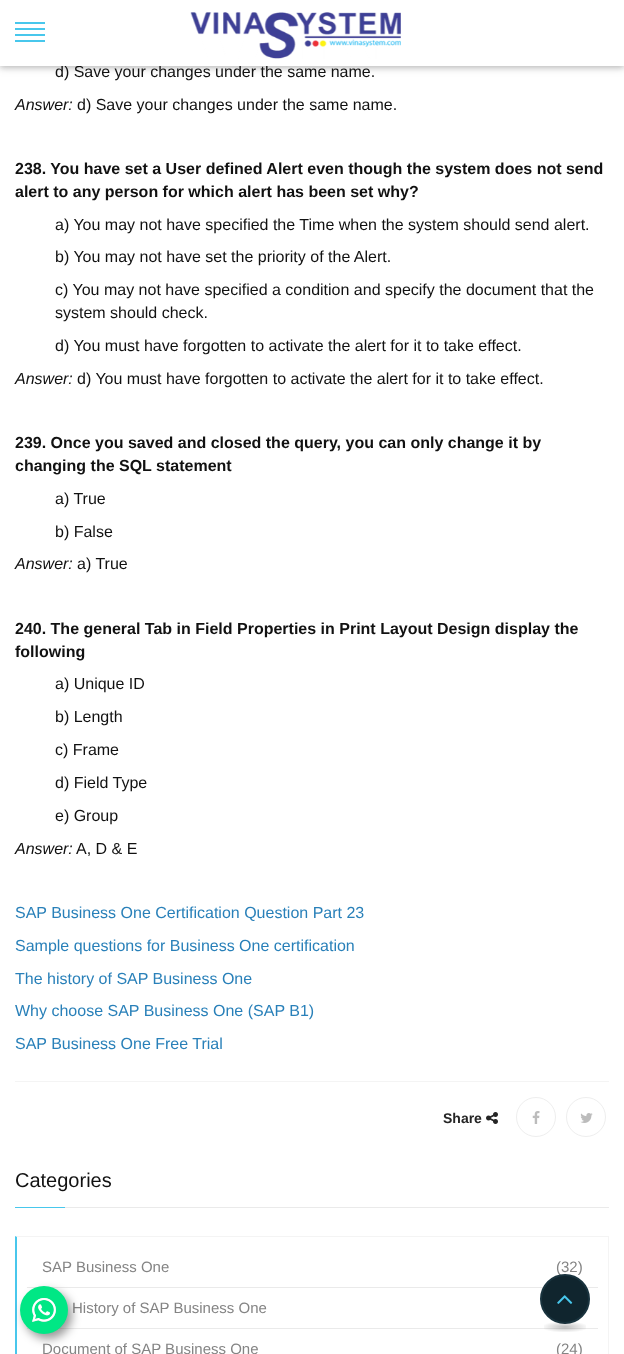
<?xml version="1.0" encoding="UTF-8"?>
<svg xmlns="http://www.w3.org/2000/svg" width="624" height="1354">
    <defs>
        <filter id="blur1" x="-50%" y="-200%" width="200%" height="500%"><feGaussianBlur stdDeviation="5"/></filter>
        <filter id="blur2" x="-50%" y="-200%" width="200%" height="500%"><feGaussianBlur stdDeviation="2.5"/></filter>
        <radialGradient id="g1" gradientUnits="userSpaceOnUse" cx="0" cy="0" r="1" gradientTransform="matrix(30 0 0 7.1 565 1327)"><stop offset="0" stop-color="#000000" stop-opacity="0.25"/><stop offset="0.8" stop-color="#000000" stop-opacity="0"/></radialGradient>
    </defs>
    <rect width="100%" height="100%" fill="#FFFFFF"/>
    <rect x="0" y="2" width="624" height="66" fill="#000000" fill-opacity="0.12" filter="url(#blur1)"/>
    <rect x="0" y="2" width="624" height="66" fill="#000000" fill-opacity="0.16" filter="url(#blur2)"/>
    <text x="55" y="77" font-family="Liberation Sans" font-size="16" fill="#111111">d) Save your changes under the same name.</text>
    <rect x="0" y="0" width="624" height="66" fill="#FFFFFF"/>
    <rect x="15" y="22" width="30" height="2" fill="#48C7EC"/>
    <rect x="15" y="28" width="30" height="2" fill="#48C7EC"/>
    <rect x="15" y="34" width="30" height="2" fill="#48C7EC"/>
    <rect x="15" y="40" width="30" height="2" fill="#48C7EC"/>
    <image x="190" y="12" width="211" height="47" href="img_01.png"/>
    <rect x="15" y="1081" width="594" height="1" fill="#F4F4F4"/>
    <text x="15" y="110" font-family="Liberation Sans" font-size="16" font-style="italic" fill="#111111">Answer:</text>
    <text x="77" y="110" font-family="Liberation Sans" font-size="16" fill="#111111">d) Save your changes under the same name.</text>
    <text font-family="Liberation Sans" font-size="16" font-weight="700" fill="#111111">
        <tspan x="15" y="174">238. You have set a User defined Alert even though the system does not send</tspan>
        <tspan x="15" y="197">alert to any person for which alert has been set why?</tspan>
    </text>
    <text x="55" y="230" font-family="Liberation Sans" font-size="16" fill="#111111">a) You may not have specified the Time when the system should send alert.</text>
    <text x="55" y="262" font-family="Liberation Sans" font-size="16" fill="#111111">b) You may not have set the priority of the Alert.</text>
    <text font-family="Liberation Sans" font-size="16" fill="#111111">
        <tspan x="55" y="295">c) You may not have specified a condition and specify the document that the</tspan>
        <tspan x="55" y="318">system should check.</tspan>
    </text>
    <text x="55" y="351" font-family="Liberation Sans" font-size="16" fill="#111111">d) You must have forgotten to activate the alert for it to take effect.</text>
    <text x="15" y="384" font-family="Liberation Sans" font-size="16" font-style="italic" fill="#111111">Answer:</text>
    <text x="77" y="384" font-family="Liberation Sans" font-size="16" fill="#111111">d) You must have forgotten to activate the alert for it to take effect.</text>
    <text font-family="Liberation Sans" font-size="16" font-weight="700" fill="#111111">
        <tspan x="15" y="448">239. Once you saved and closed the query, you can only change it by</tspan>
        <tspan x="15" y="471">changing the SQL statement</tspan>
    </text>
    <text x="55" y="504" font-family="Liberation Sans" font-size="16" fill="#111111">a) True</text>
    <text x="55" y="537" font-family="Liberation Sans" font-size="16" fill="#111111">b) False</text>
    <text x="15" y="569" font-family="Liberation Sans" font-size="16" font-style="italic" fill="#111111">Answer:</text>
    <text x="77" y="569" font-family="Liberation Sans" font-size="16" fill="#111111">a) True</text>
    <text font-family="Liberation Sans" font-size="16" font-weight="700" fill="#111111">
        <tspan x="15" y="634">240. The general Tab in Field Properties in Print Layout Design display the</tspan>
        <tspan x="15" y="657">following</tspan>
    </text>
    <text x="55" y="689" font-family="Liberation Sans" font-size="16" fill="#111111">a) Unique ID</text>
    <text x="55" y="722" font-family="Liberation Sans" font-size="16" fill="#111111">b) Length</text>
    <text x="55" y="755" font-family="Liberation Sans" font-size="16" fill="#111111">c) Frame</text>
    <text x="55" y="788" font-family="Liberation Sans" font-size="16" fill="#111111">d) Field Type</text>
    <text x="55" y="821" font-family="Liberation Sans" font-size="16" fill="#111111">e) Group</text>
    <text x="15" y="854" font-family="Liberation Sans" font-size="16" font-style="italic" fill="#111111">Answer:</text>
    <text x="76" y="854" font-family="Liberation Sans" font-size="16" fill="#111111">A, D &amp; E</text>
    <text x="15" y="918" font-family="Liberation Sans" font-size="16" fill="#2980B9">SAP Business One Certification Question Part 23</text>
    <text x="15" y="951" font-family="Liberation Sans" font-size="16" fill="#2980B9">Sample questions for Business One certification</text>
    <text x="15" y="984" font-family="Liberation Sans" font-size="16" fill="#2980B9">The history of SAP Business One</text>
    <text x="15" y="1016" font-family="Liberation Sans" font-size="16" fill="#2980B9">Why choose SAP Business One (SAP B1)</text>
    <text x="15" y="1049" font-family="Liberation Sans" font-size="16" fill="#2980B9">SAP Business One Free Trial</text>
    <text x="443" y="1123" font-family="Liberation Sans" font-size="14" font-weight="700" fill="#252525">Share</text>
    <image x="486" y="1112" width="12" height="12" href="img_02.png"/>
    <circle cx="536" cy="1117" r="19.5" fill="none" stroke="#EEEEEE"/>
    <image x="532" y="1111" width="8" height="13" href="img_03.png"/>
    <circle cx="586" cy="1117" r="19.5" fill="none" stroke="#EEEEEE"/>
    <image x="580" y="1113" width="13" height="10" href="img_04.png"/>
    <text x="15" y="1187" font-family="Liberation Sans" font-size="20" fill="#111111">Categories</text>
    <rect x="15" y="1207" width="50" height="1" fill="#48C7EC"/>
    <rect x="65" y="1207" width="544" height="1" fill="#EAEAEA"/>
    <path d="M 15 1236 H 609 L 608 1237 H 17 Z" fill="#F4F4F4"/>
    <rect x="608" y="1236" width="1" height="118" fill="#F4F4F4"/>
    <path d="M 15 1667 V 1236 L 17 1237 V 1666 Z" fill="#48C7EC"/>
    <rect x="27" y="1287" width="571" height="1" fill="#EAEAEA"/>
    <text x="42" y="1272" font-family="Liberation Sans" font-size="15" fill="#848484">SAP Business One</text>
    <text x="556" y="1272" font-family="Liberation Sans" font-size="15" fill="#848484">(32)</text>
    <rect x="27" y="1328" width="571" height="1" fill="#EAEAEA"/>
    <text x="72" y="1313" font-family="Liberation Sans" font-size="15" fill="#848484">History of SAP Business One</text>
    <text x="42" y="1354" font-family="Liberation Sans" font-size="15" fill="#848484">Document of SAP Business One</text>
    <text x="556" y="1354" font-family="Liberation Sans" font-size="15" fill="#848484">(24)</text>
    <rect x="24" y="1291" width="48" height="48" rx="24" fill="#000000" fill-opacity="0.4" filter="url(#blur1)"/>
    <circle cx="44" cy="1310" r="24" fill="#00E785"/>
    <image x="32" y="1298" width="24" height="24" href="img_05.png"/>
    <circle cx="565" cy="1299" r="24" fill="#10252E" stroke="#19333E" stroke-width="2"/>
    <image x="557" y="1295" width="16" height="9" href="img_06.png"/>
    <rect x="544" y="1322" width="42" height="10" fill="url(#g1)"/>
</svg>
